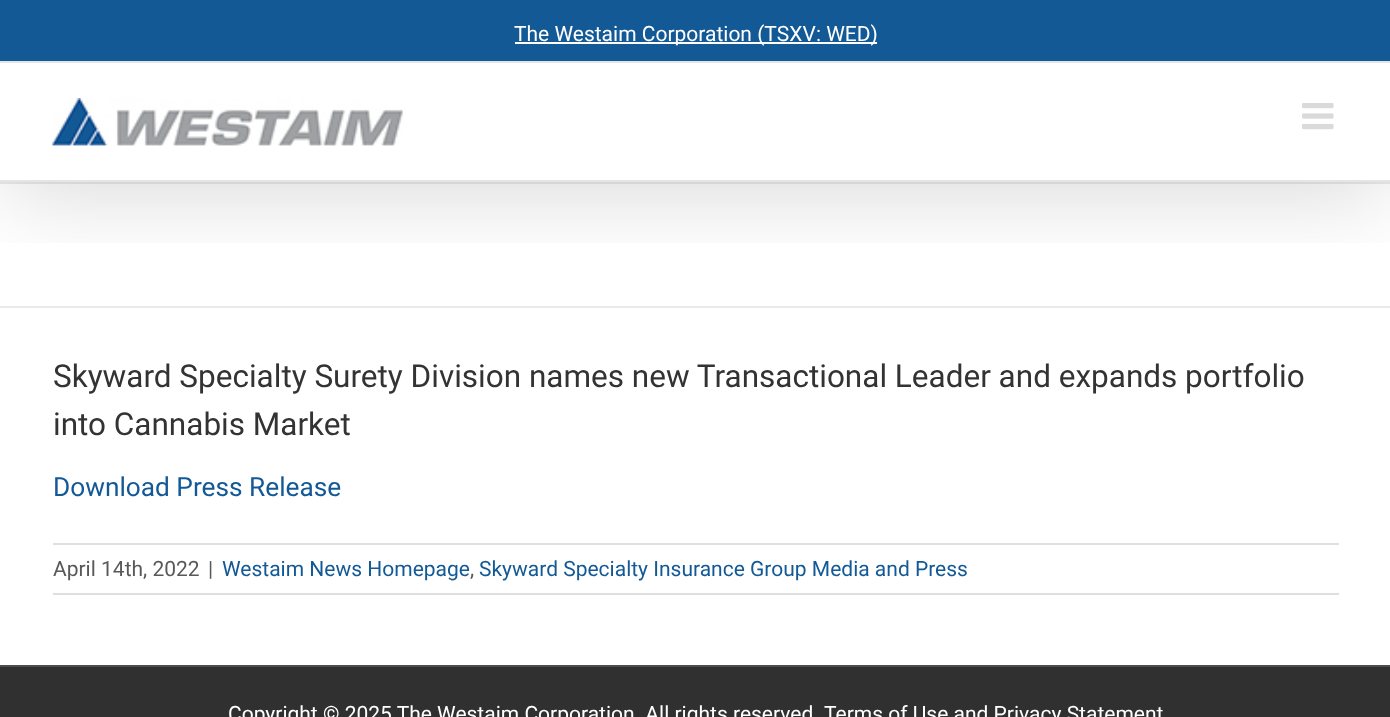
<?xml version="1.0" encoding="UTF-8"?>
<svg xmlns="http://www.w3.org/2000/svg" width="1390" height="717">
    <defs>
        <clipPath id="clip1"><rect x="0" y="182" width="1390" height="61"/></clipPath>
        <filter id="blur1" x="-50%" y="-200%" width="200%" height="500%"><feGaussianBlur stdDeviation="44"/></filter>
    </defs>
    <rect width="100%" height="100%" fill="#FFFFFF"/>
    <rect x="0" y="182" width="1390" height="2" fill="#EAEAEA"/>
    <rect x="0" y="306" width="1390" height="2" fill="#EAEAEA"/>
    <g clip-path="url(#clip1)">
        <rect x="4" y="21" width="1384" height="175" fill="#000000" fill-opacity="0.14" filter="url(#blur1)"/>
    </g>
    <rect x="0" y="0" width="1390" height="61" fill="#125996"/>
    <rect x="0" y="61" width="1390" height="2" fill="#E5E5E5"/>
    <rect x="515" y="42" width="362" height="2" fill="#FFFFFF"/>
    <text x="514" y="41" font-family="Roboto" font-size="21" fill="#FFFFFF">The Westaim Corporation (TSXV: WED)</text>
    <rect x="0" y="180" width="1390" height="2" fill="#E5E5E5"/>
    <image x="52" y="98" width="351" height="48" href="img_01.png"/>
    <image x="1302" y="103" width="32" height="27" href="img_02.png"/>
    <text font-family="Roboto" font-size="31.5" fill="#333333">
        <tspan x="53" y="387">Skyward Specialty Surety Division names new Transactional Leader and expands portfolio</tspan>
        <tspan x="53" y="435">into Cannabis Market</tspan>
    </text>
    <text x="53" y="496" font-family="Roboto" font-size="26.25" fill="#125996">Download Press Release</text>
    <rect x="53" y="543" width="1286" height="2" fill="#E0DEDE"/>
    <rect x="53" y="593" width="1286" height="2" fill="#E0DEDE"/>
    <text x="53" y="576" font-family="Roboto" font-size="21" fill="#595959">April 14th, 2022</text>
    <text x="208" y="576" font-family="Roboto" font-size="21" fill="#595959">|</text>
    <text x="222" y="576" font-family="Roboto" font-size="21" fill="#125996">Westaim News Homepage</text>
    <text x="470" y="576" font-family="Roboto" font-size="21" fill="#595959">,</text>
    <text x="479" y="576" font-family="Roboto" font-size="21" fill="#125996">Skyward Specialty Insurance Group Media and Press</text>
    <rect x="0" y="667" width="1390" height="50" fill="#303030"/>
    <rect x="0" y="665" width="1390" height="2" fill="#4B4C4D"/>
    <text x="228" y="721" font-family="Roboto" font-size="21" fill="#FFFFFF">Copyright © 2025 The Westaim Corporation. All rights reserved</text>
    <text x="824" y="721" font-family="Roboto" font-size="21" fill="#FFFFFF">Terms of Use and Privacy Statement</text>
</svg>
